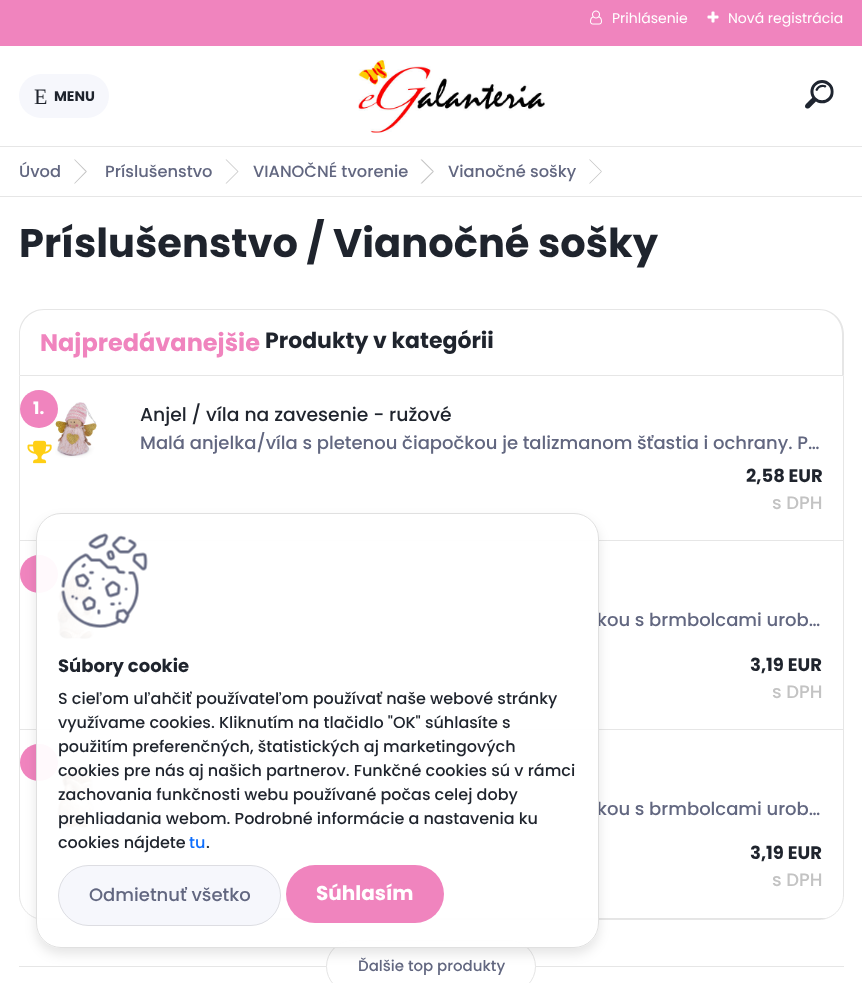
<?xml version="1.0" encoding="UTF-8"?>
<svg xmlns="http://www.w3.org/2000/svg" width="862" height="983">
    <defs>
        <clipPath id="clip1"><path d="M 20 376 H 843 V 895 C 843 908.5 832.5 919 819 919 H 44 C 30.5 919 20 908.5 20 895 Z"/></clipPath>
        <clipPath id="clip2"><path d="M 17 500 H 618 V 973 H 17 Z M 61 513 H 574 C 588 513 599 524 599 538 V 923 C 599 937 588 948 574 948 H 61 C 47 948 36 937 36 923 V 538 C 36 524 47 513 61 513 Z" clip-rule="evenodd"/></clipPath>
        <filter id="blur1" x="-50%" y="-200%" width="200%" height="500%"><feGaussianBlur stdDeviation="6"/></filter>
    </defs>
    <rect width="100%" height="100%" fill="#FFFFFF"/>
    <rect x="0" y="0" width="862" height="46" fill="#F084BE"/>
    <image x="590" y="10" width="12" height="15" href="img_01.png"/>
    <text x="612" y="23" font-family="Poppins" font-size="14" fill="#FFFFFF">Prihlásenie</text>
    <image x="707" y="11" width="12" height="12" href="img_02.png"/>
    <text x="728" y="23" font-family="Poppins" font-size="14" fill="#FFFFFF">Nová registrácia</text>
    <rect x="0" y="146" width="862" height="1" fill="#E6E6E6"/>
    <rect x="19" y="74" width="90" height="44" rx="22" fill="#F6F7FC"/>
    <text x="34" y="104" font-family="Liberation Serif" font-size="22" fill="#1F242D">E</text>
    <text x="54" y="101" font-family="Poppins" font-size="14" font-weight="700" fill="#1F242D">MENU</text>
    <image x="358" y="60" width="187" height="73" href="img_03.png"/>
    <image x="805" y="80" width="29" height="29" href="img_04.png"/>
    <rect x="0" y="196" width="862" height="1" fill="#E6E6E6"/>
    <text x="19" y="177" font-family="Poppins" font-size="16.25" font-weight="500" fill="#626780">Úvod</text>
    <path d="M 74 159.5 H 75 L 87 171.5 H 85.5 Z" fill="#C3C3C3"/>
    <path d="M 85.5 171.5 H 87 L 75 183.5 H 74 Z" fill="#C3C3C3"/>
    <text x="105" y="177" font-family="Poppins" font-size="16.25" font-weight="500" fill="#626780">Príslušenstvo</text>
    <path d="M 225.5 159.5 H 226.5 L 238.5 171.5 H 237.5 Z" fill="#C3C3C3"/>
    <path d="M 237.5 171.5 H 238.5 L 226.5 183.5 H 225.5 Z" fill="#373737" fill-opacity="0.3"/>
    <text x="253" y="177" font-family="Poppins" font-size="16.25" font-weight="500" fill="#626780">VIANOČNÉ tvorenie</text>
    <path d="M 420.5 159.5 H 422 L 434 171.5 H 432.5 Z" fill="#C3C3C3"/>
    <path d="M 432.5 171.5 H 434 L 422 183.5 H 420.5 Z" fill="#C3C3C3"/>
    <text x="448" y="177" font-family="Poppins" font-size="16.25" font-weight="500" fill="#626780">Vianočné sošky</text>
    <path d="M 589 159.5 H 590 L 602 171.5 H 601 Z" fill="#C3C3C3"/>
    <path d="M 601 171.5 H 602 L 590 183.5 H 589 Z" fill="#C3C3C3"/>
    <text x="19" y="257" font-family="Poppins" font-size="40" font-weight="700" fill="#1F242D">Príslušenstvo / Vianočné sošky</text>
    <path d="M 44 309 H 819 C 833 309 844 320 844 334 V 375 H 19 V 334 C 19 320 30 309 44 309 Z M 44 310 H 819 C 832 310 842 321 842 334 V 375 H 20 V 334 C 20 321 31 310 44 310 Z" fill="#E6E6E6" fill-rule="evenodd"/>
    <text x="40" y="351" font-family="Poppins" font-size="24" font-weight="700" fill="#F084BE">Najpredávanejšie</text>
    <text x="265" y="348" font-family="Poppins" font-size="22" font-weight="700" fill="#1F242D">Produkty v kategórii</text>
    <path d="M 19.5 375.5 H 843.5 V 895 C 843.5 908.5 832.5 919.5 819 919.5 H 44 C 30.5 919.5 19.5 908.5 19.5 895 Z" fill="none" stroke="#E6E6E6"/>
    <rect x="20" y="540" width="823" height="1" fill="#E6E6E6"/>
    <image x="55" y="402" width="42" height="56" href="img_05.png"/>
    <circle cx="39" cy="409" r="19" fill="#F084BE"/>
    <text x="33" y="414" font-family="Poppins" font-size="17" font-weight="700" fill="#FFFFFF">1.</text>
    <image x="27" y="440" width="25" height="24" href="img_06.png"/>
    <text x="140" y="421" font-family="Poppins" font-size="18.75" font-weight="500" fill="#1F242D">Anjel / víla na zavesenie - ružové</text>
    <text x="140" y="449" font-family="Poppins" font-size="18" font-weight="500" fill="#626780">Malá anjelka/víla s pletenou čiapočkou je talizmanom šťastia i ochrany. P…</text>
    <text x="746" y="482" font-family="Poppins" font-size="18" font-weight="700" fill="#1F242D">2,58 EUR</text>
    <text x="772" y="509" font-family="Poppins" font-size="18" font-weight="500" fill="#C3C3C3">s DPH</text>
    <rect x="20" y="729" width="823" height="1" fill="#E6E6E6"/>
    <image x="55" y="573" width="41" height="67" href="img_07.png"/>
    <circle cx="39" cy="574" r="19" fill="#F084BE"/>
    <text x="597" y="626" font-family="Poppins" font-size="18" font-weight="500" fill="#626780">kou s brmbolcami urob…</text>
    <text x="750" y="671" font-family="Poppins" font-size="18" font-weight="700" fill="#1F242D">3,19 EUR</text>
    <text x="772" y="698" font-family="Poppins" font-size="18" font-weight="500" fill="#C3C3C3">s DPH</text>
    <g clip-path="url(#clip1)">
        <rect x="38" y="918" width="787" height="1" fill="#000000" fill-opacity="0.1"/>
    </g>
    <image x="56" y="762" width="40" height="67" href="img_08.png"/>
    <rect x="20" y="744" width="38" height="37" rx="18.5" fill="#F084BE"/>
    <text x="597" y="815" font-family="Poppins" font-size="18" font-weight="500" fill="#626780">kou s brmbolcami urob…</text>
    <text x="750" y="859" font-family="Poppins" font-size="18" font-weight="700" fill="#1F242D">3,19 EUR</text>
    <text x="772" y="886" font-family="Poppins" font-size="18" font-weight="500" fill="#C3C3C3">s DPH</text>
    <rect x="19" y="966" width="825" height="1" fill="#E6E6E6"/>
    <rect x="326.5" y="940.5" width="209" height="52" rx="26" fill="#FFFFFF" stroke="#E5E5E5"/>
    <text x="358" y="971" font-family="Poppins" font-size="15" font-weight="500" fill="#626780">Ďalšie top produkty</text>
    <g clip-path="url(#clip2)">
        <rect x="36" y="519" width="563" height="435" rx="25" fill="#000000" fill-opacity="0.1" filter="url(#blur1)"/>
    </g>
    <rect x="36.5" y="513.5" width="562" height="434" rx="24.5" fill="#FFFFFF" fill-opacity="0.95" stroke="#E0E0E0"/>
    <image x="61" y="533" width="87" height="95" href="img_09.png"/>
    <text x="58" y="672" font-family="Poppins" font-size="18" font-weight="700" fill="#1F242D">Súbory cookie</text>
    <text font-family="Poppins" font-size="16" font-weight="500" fill="#1F242D">
        <tspan x="58" y="704">S cieľom uľahčiť používateľom používať naše webové stránky</tspan>
        <tspan x="58" y="728">využívame cookies. Kliknutím na tlačidlo "OK" súhlasíte s</tspan>
        <tspan x="58" y="752">použitím preferenčných, štatistických aj marketingových</tspan>
        <tspan x="58" y="776">cookies pre nás aj našich partnerov. Funkčné cookies sú v rámci</tspan>
        <tspan x="58" y="800">zachovania funkčnosti webu používané počas celej doby</tspan>
        <tspan x="58" y="824">prehliadania webom. Podrobné informácie a nastavenia ku</tspan>
        <tspan x="58" y="848">cookies nájdete</tspan>
    </text>
    <text x="189" y="848" font-family="Poppins" font-size="16" font-weight="500" fill="#0D6EFD">tu</text>
    <text x="206" y="848" font-family="Poppins" font-size="16" font-weight="500" fill="#1F242D">.</text>
    <rect x="58" y="865" width="223" height="61" rx="30.5" fill="#F6F7FC"/>
    <rect x="58.5" y="865.5" width="222" height="60" rx="30" fill="none" stroke="#000000" stroke-opacity="0.1"/>
    <text x="89" y="901" font-family="Poppins" font-size="18" font-weight="500" fill="#626780">Odmietnuť všetko</text>
    <rect x="286" y="865" width="158" height="58" rx="29" fill="#F084BE"/>
    <text x="316" y="900" font-family="Poppins" font-size="20" font-weight="700" fill="#FFFFFF">Súhlasím</text>
</svg>
